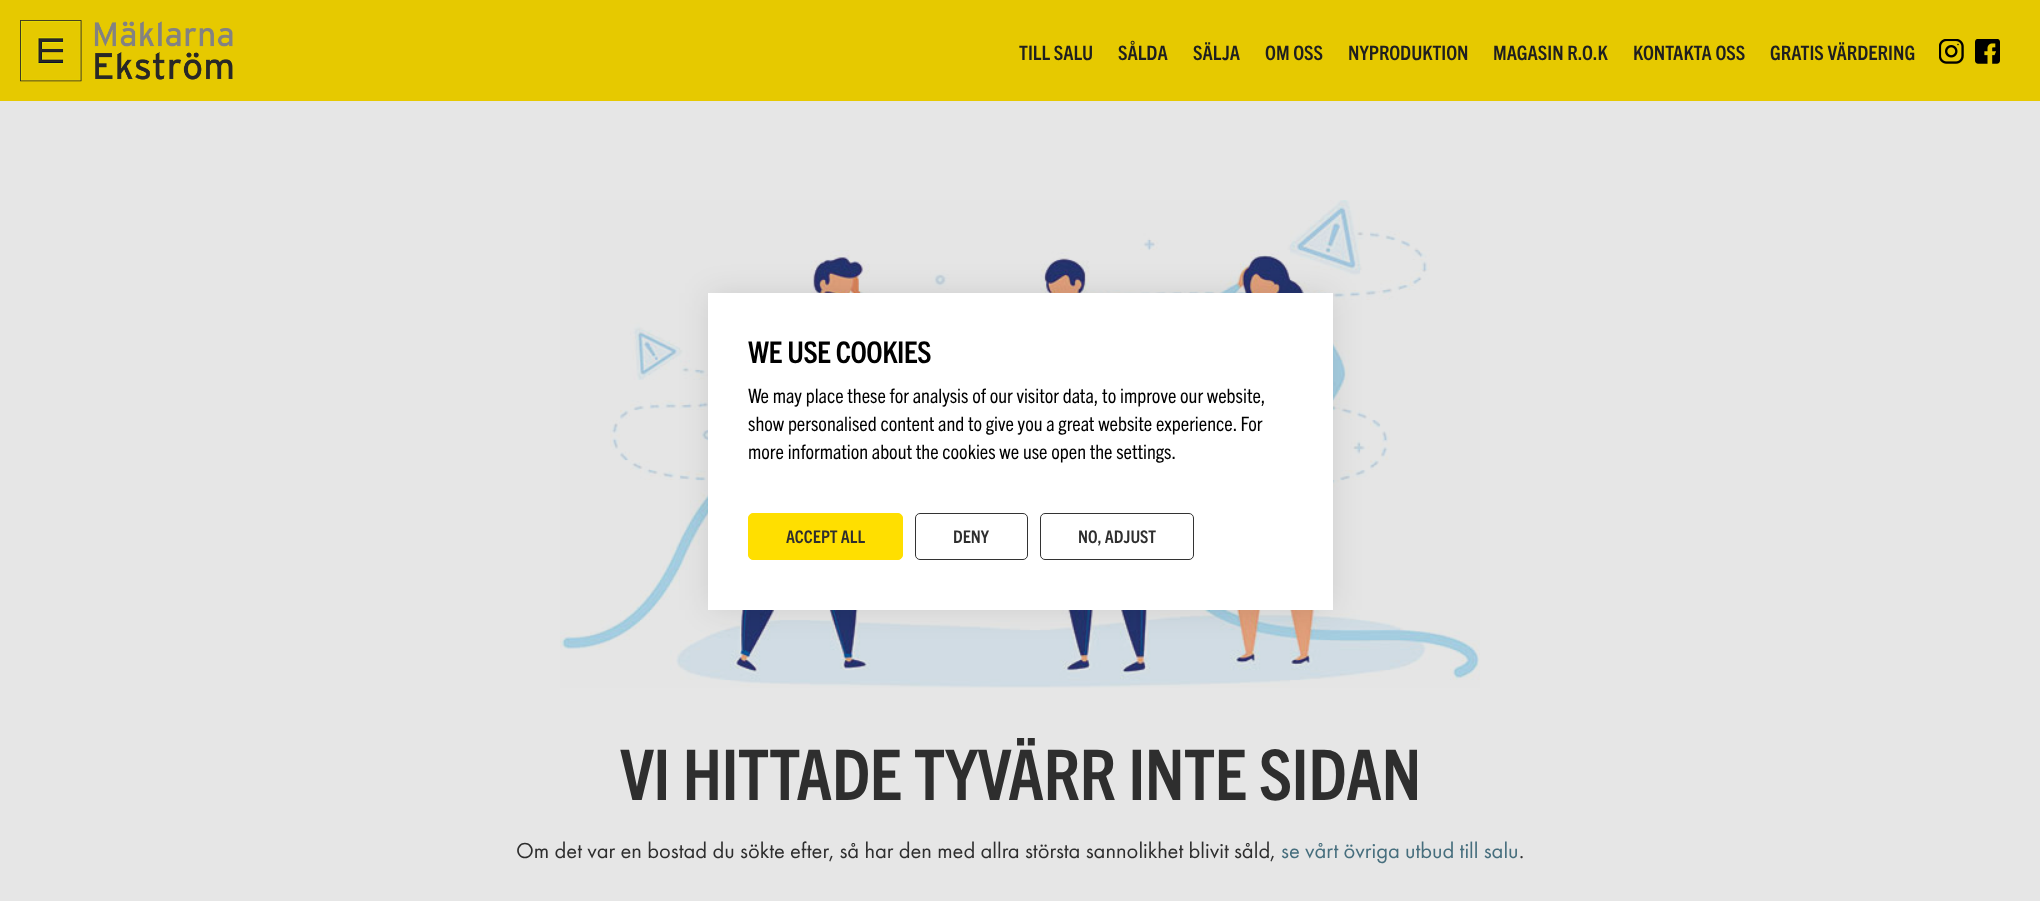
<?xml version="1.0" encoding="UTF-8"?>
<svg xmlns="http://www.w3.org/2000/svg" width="2040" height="901">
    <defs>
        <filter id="blur1" x="-50%" y="-200%" width="200%" height="500%"><feGaussianBlur stdDeviation="15"/></filter>
    </defs>
    <rect width="100%" height="100%" fill="#E6E6E6"/>
    <rect x="0" y="0" width="2040" height="101" fill="#E6C900"/>
    <image x="20" y="20" width="213" height="62" href="img_01.png"/>
    <text x="1019" y="60" font-family="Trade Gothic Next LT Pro" font-size="20" font-weight="700" fill="#1F1F1F">TILL SALU</text>
    <text x="1118" y="60" font-family="Trade Gothic Next LT Pro" font-size="20" font-weight="700" fill="#1F1F1F">SÅLDA</text>
    <text x="1193" y="60" font-family="Trade Gothic Next LT Pro" font-size="20" font-weight="700" fill="#1F1F1F">SÄLJA</text>
    <text x="1265" y="60" font-family="Trade Gothic Next LT Pro" font-size="20" font-weight="700" fill="#1F1F1F">OM OSS</text>
    <text x="1348" y="60" font-family="Trade Gothic Next LT Pro" font-size="20" font-weight="700" fill="#1F1F1F">NYPRODUKTION</text>
    <text x="1493" y="60" font-family="Trade Gothic Next LT Pro" font-size="20" font-weight="700" fill="#1F1F1F">MAGASIN R.O.K</text>
    <text x="1633" y="60" font-family="Trade Gothic Next LT Pro" font-size="20" font-weight="700" fill="#1F1F1F">KONTAKTA OSS</text>
    <text x="1770" y="60" font-family="Trade Gothic Next LT Pro" font-size="20" font-weight="700" fill="#1F1F1F">GRATIS VÄRDERING</text>
    <image x="1939" y="39" width="25" height="25" href="img_02.png"/>
    <image x="1975" y="39" width="25" height="25" href="img_03.png"/>
    <image x="560" y="200" width="920" height="488" href="img_04.png"/>
    <text x="620" y="800" font-family="Trade Gothic Next LT Pro" font-size="70" font-weight="700" letter-spacing="-0.6" fill="#2E2E2E">VI HITTADE TYVÄRR INTE SIDAN</text>
    <text x="516" y="858" font-family="Futura PT" font-size="22.5" fill="#2E2E2E">Om det var en bostad du sökte efter, så har den med allra största sannolikhet blivit såld,</text>
    <text x="1281" y="858" font-family="Futura PT" font-size="22.5" fill="#466E7D">se vårt övriga utbud till salu</text>
    <text x="1519" y="858" font-family="Futura PT" font-size="22.5" fill="#2E2E2E">.</text>
    <rect x="708" y="293" width="625" height="317" fill="#000000" fill-opacity="0.1" filter="url(#blur1)"/>
    <rect x="708" y="293" width="625" height="317" fill="#FFFFFF"/>
    <text x="748" y="363" font-family="Trade Gothic Next LT Pro" font-size="30" font-weight="700" letter-spacing="-0.5" fill="#000000">WE USE COOKIES</text>
    <text font-family="Trade Gothic Next LT Pro" font-size="20" fill="#000000">
        <tspan x="748" y="403">We may place these for analysis of our visitor data, to improve our website,</tspan>
        <tspan x="748" y="431">show personalised content and to give you a great website experience. For</tspan>
        <tspan x="748" y="459">more information about the cookies we use open the settings.</tspan>
    </text>
    <rect x="748.5" y="513.5" width="154" height="46" rx="4.5" fill="#FFDF00" stroke="#FFDF00"/>
    <text x="786" y="543" font-family="Trade Gothic Next LT Pro" font-size="17.5" font-weight="700" fill="#2E2E2E">ACCEPT ALL</text>
    <rect x="915.5" y="513.5" width="112" height="46" rx="4.5" fill="none" stroke="#333333"/>
    <text x="953" y="543" font-family="Trade Gothic Next LT Pro" font-size="17.5" font-weight="700" fill="#2E2E2E">DENY</text>
    <rect x="1040.5" y="513.5" width="153" height="46" rx="4.5" fill="none" stroke="#333333"/>
    <text x="1078" y="543" font-family="Trade Gothic Next LT Pro" font-size="17.5" font-weight="700" fill="#2E2E2E">NO, ADJUST</text>
</svg>
